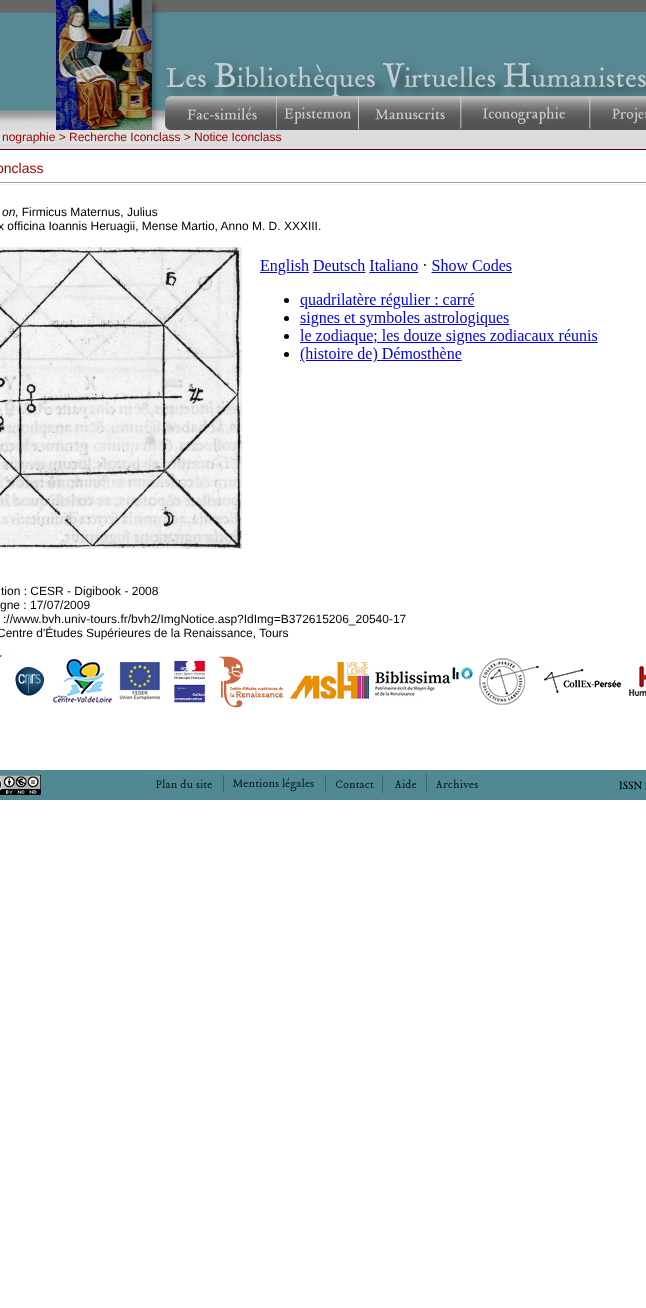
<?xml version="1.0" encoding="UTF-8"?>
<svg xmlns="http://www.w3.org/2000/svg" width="646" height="1308">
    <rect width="100%" height="100%" fill="#FFFFFF"/>
    <image x="0" y="0" width="56" height="13" href="img_01.png"/>
    <image x="56" y="0" width="96" height="130" href="img_02.png"/>
    <image x="152" y="0" width="494" height="12" href="img_03.png"/>
    <image x="0" y="13" width="56" height="97" href="img_04.png"/>
    <image x="152" y="12" width="13" height="85" href="img_05.png"/>
    <rect x="165" y="12" width="481" height="12" fill="#588894"/>
    <rect x="165" y="24" width="481" height="17" fill="#588894"/>
    <image x="165" y="41" width="414" height="19" href="img_06.png"/>
    <rect x="579" y="41" width="67" height="19" fill="#588894"/>
    <image x="165" y="60" width="46" height="36" href="img_07.png"/>
    <image x="211" y="60" width="168" height="36" href="img_08.png"/>
    <image x="379" y="60" width="121" height="36" href="img_09.png"/>
    <image x="500" y="60" width="146" height="36" href="img_10.png"/>
    <image x="0" y="110" width="56" height="20" href="img_11.png"/>
    <image x="152" y="97" width="13" height="33" href="img_12.png"/>
    <image x="165" y="96" width="113" height="34" href="img_13.png"/>
    <image x="278" y="96" width="82" height="34" href="img_14.png"/>
    <image x="360" y="96" width="102" height="34" href="img_15.png"/>
    <image x="462" y="96" width="129" height="34" href="img_16.png"/>
    <image x="591" y="96" width="55" height="34" href="img_17.png"/>
    <rect x="0" y="130" width="646" height="19" fill="#DCDCDE"/>
    <rect x="0" y="149" width="646" height="1" fill="#660000"/>
    <rect x="0" y="130" width="55" height="14" fill="#E1E1E1"/>
    <text x="2" y="141" font-family="Liberation Sans" font-size="12" fill="#990000">nographie &gt;</text>
    <rect x="69" y="130" width="112" height="14" fill="#E1E1E1"/>
    <text x="69" y="141" font-family="Liberation Sans" font-size="12" fill="#990000">Recherche Iconclass &gt; Notice Iconclass</text>
    <text x="-4" y="173" font-family="Liberation Sans" font-size="14" fill="#990000">onclass</text>
    <rect x="0" y="182" width="646" height="1" fill="#9F9F9F"/>
    <rect x="0" y="184" width="646" height="1" fill="#EEEEEE"/>
    <text x="2" y="216" font-family="Liberation Sans" font-size="12" font-style="italic" fill="#000000">on</text>
    <text x="15" y="216" font-family="Liberation Sans" font-size="12" fill="#000000">, Firmicus Maternus, Julius</text>
    <text x="-2" y="230" font-family="Liberation Sans" font-size="12" fill="#000000">x officina Ioannis Heruagii, Mense Martio, Anno M. D. XXXIII.</text>
    <image x="0" y="247" width="242" height="302" href="img_18.png"/>
    <image x="260" y="259" width="338" height="104" href="img_19.png"/>
    <text x="1" y="595" font-family="Liberation Sans" font-size="12" fill="#000000">tion : CESR - Digibook - 2008</text>
    <text x="0" y="609" font-family="Liberation Sans" font-size="12" fill="#000000">gne : 17/07/2009</text>
    <text x="3" y="623" font-family="Liberation Sans" font-size="12" fill="#000000">://www.bvh.univ-tours.fr/bvh2/ImgNotice.asp?IdImg=B372615206_20540-17</text>
    <text x="-3" y="637" font-family="Liberation Sans" font-size="12" fill="#000000">Centre d'Études Supérieures de la Renaissance, Tours</text>
    <image x="0" y="654" width="3" height="5" href="img_20.png"/>
    <image x="15" y="667" width="29" height="29" href="img_21.png"/>
    <image x="53" y="658" width="59" height="45" href="img_22.png"/>
    <image x="119" y="661" width="42" height="39" href="img_23.png"/>
    <image x="174" y="660" width="31" height="43" href="img_24.png"/>
    <image x="219" y="656" width="64" height="52" href="img_25.png"/>
    <image x="289" y="662" width="80" height="37" href="img_26.png"/>
    <image x="374" y="665" width="99" height="33" href="img_27.png"/>
    <image x="479" y="658" width="60" height="47" href="img_28.png"/>
    <image x="544" y="669" width="77" height="24" href="img_29.png"/>
    <image x="629" y="666" width="17" height="30" href="img_30.png"/>
    <image x="0" y="770" width="646" height="30" href="img_31.png"/>
</svg>
